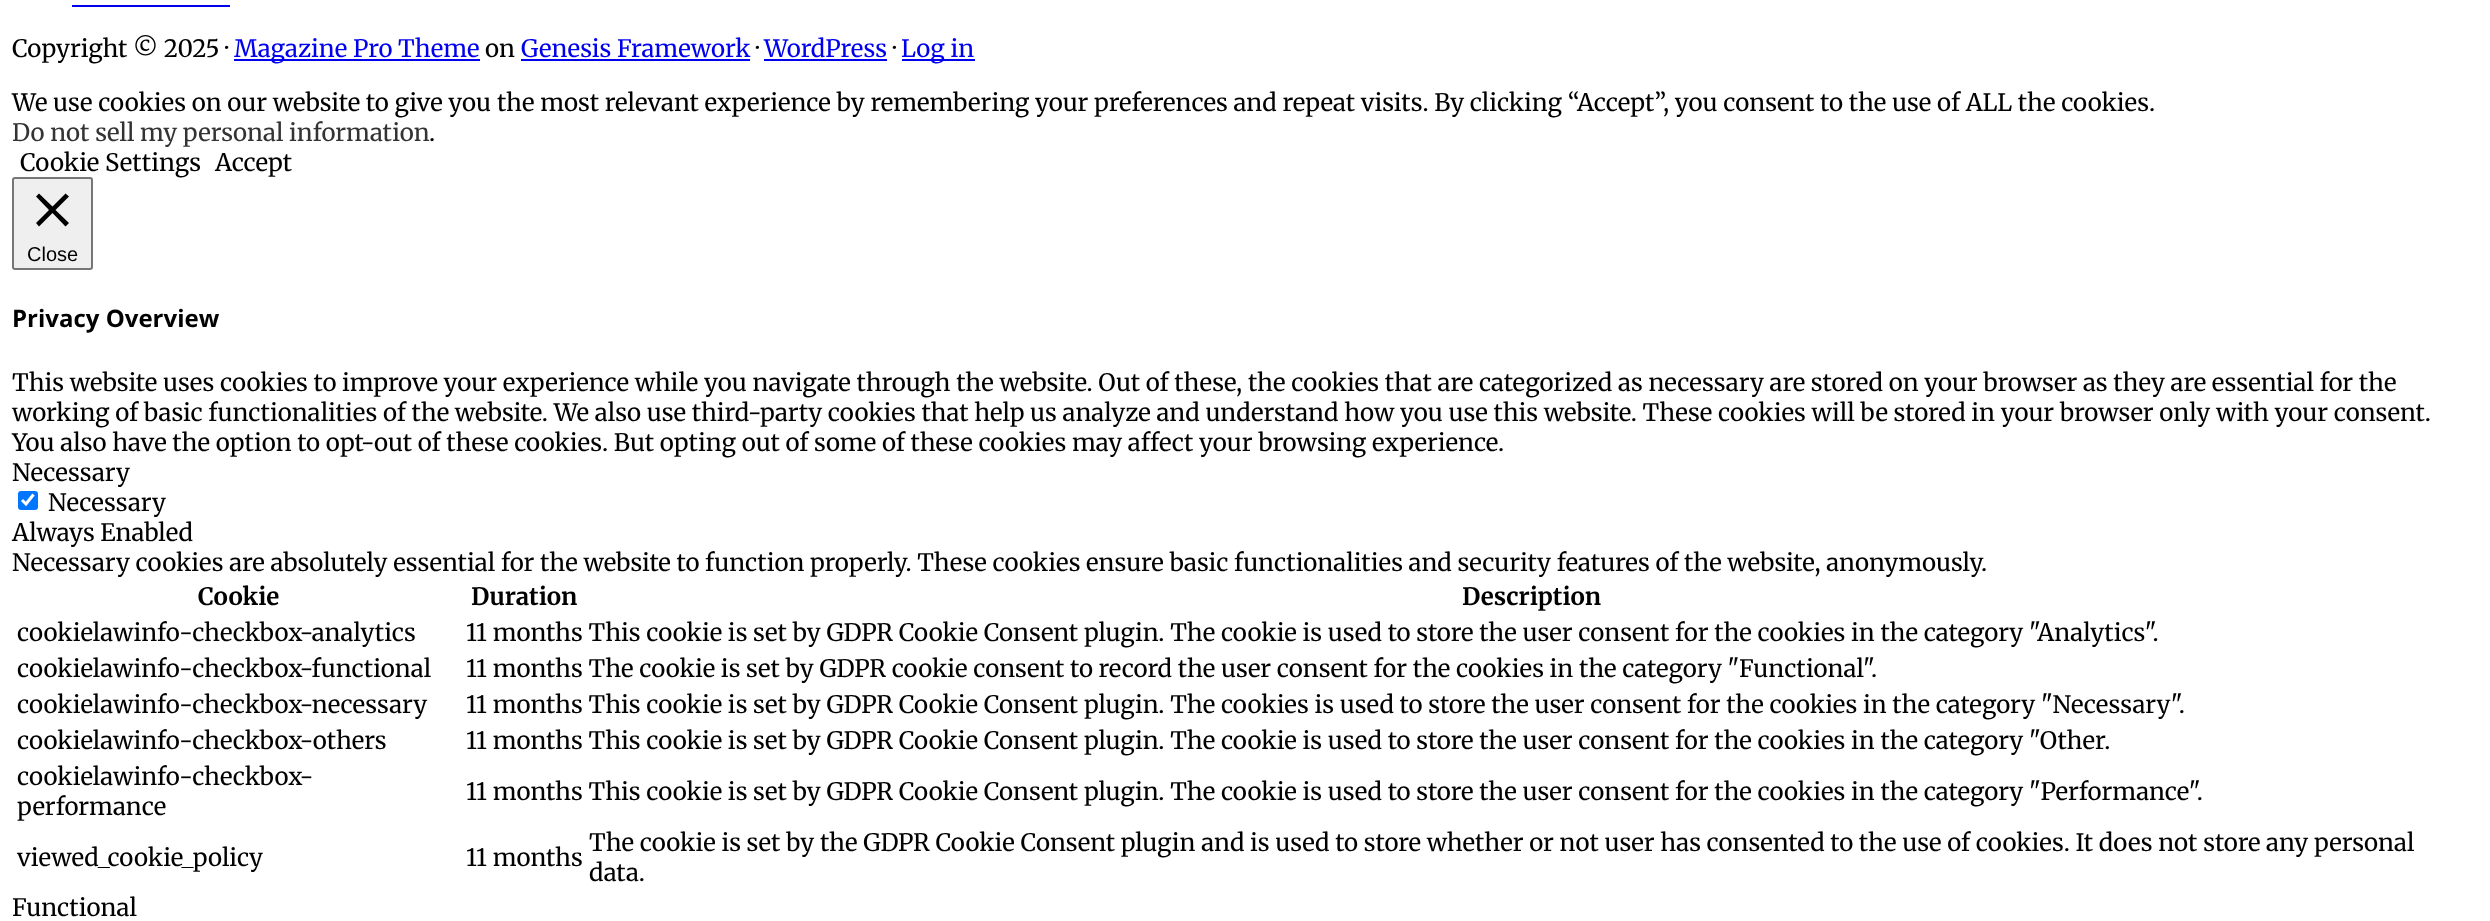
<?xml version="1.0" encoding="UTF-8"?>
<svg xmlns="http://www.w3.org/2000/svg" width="2490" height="921">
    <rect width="100%" height="100%" fill="#FFFFFF"/>
    <rect x="72" y="5" width="158" height="2" fill="#0000EE"/>
    <text x="12" y="57" font-family="Merriweather" font-size="24" fill="#000000">Copyright © 2025 ·</text>
    <rect x="234" y="59" width="246" height="2" fill="#0000EE"/>
    <text x="234" y="57" font-family="Merriweather" font-size="24" fill="#0000EE">Magazine Pro Theme</text>
    <text x="485" y="57" font-family="Merriweather" font-size="24" fill="#000000">on</text>
    <text x="521" y="57" font-family="Merriweather" font-size="24" fill="#0000EE">Genesis Framework</text>
    <rect x="521" y="59" width="229" height="2" fill="#0000EE"/>
    <text x="756" y="57" font-family="Merriweather" font-size="24" fill="#000000">·</text>
    <text x="764" y="57" font-family="Merriweather" font-size="24" fill="#0000EE">WordPress</text>
    <rect x="764" y="59" width="123" height="2" fill="#0000EE"/>
    <text x="893" y="57" font-family="Merriweather" font-size="24" fill="#000000">·</text>
    <rect x="902" y="59" width="73" height="2" fill="#0000EE"/>
    <text x="901" y="57" font-family="Merriweather" font-size="24" fill="#0000EE">Log in</text>
    <text x="12" y="111" font-family="Merriweather" font-size="24" fill="#000000">We use cookies on our website to give you the most relevant experience by remembering your preferences and repeat visits. By clicking “Accept”, you consent to the use of ALL the cookies.</text>
    <text x="12" y="141" font-family="Merriweather" font-size="24" fill="#333333">Do not sell my personal information</text>
    <text x="429" y="141" font-family="Merriweather" font-size="24" fill="#000000">.</text>
    <text x="20" y="171" font-family="Merriweather" font-size="24" fill="#000000">Cookie Settings</text>
    <text x="215" y="171" font-family="Merriweather" font-size="24" fill="#000000">Accept</text>
    <rect x="13" y="178" width="79" height="91" rx="2" fill="#EFEFEF" stroke="#767676" stroke-width="2"/>
    <path d="M 69 196.5 L 65.5 193.5 L 52.5 206.5 L 39 193.5 L 36 196.5 L 49 210 L 36 223 L 39 226.5 L 52.5 213 L 65.5 226.5 L 69 223 L 55.5 210 Z" fill="#000000"/>
    <text x="27" y="261" font-family="Liberation Sans" font-size="20" fill="#000000">Close</text>
    <text x="12" y="327" font-family="Open Sans" font-size="24" font-weight="700" fill="#000000">Privacy Overview</text>
    <text font-family="Merriweather" font-size="24" fill="#000000">
        <tspan x="12" y="391">This website uses cookies to improve your experience while you navigate through the website. Out of these, the cookies that are categorized as necessary are stored on your browser as they are essential for the</tspan>
        <tspan x="12" y="421">working of basic functionalities of the website. We also use third-party cookies that help us analyze and understand how you use this website. These cookies will be stored in your browser only with your consent.</tspan>
        <tspan x="12" y="451">You also have the option to opt-out of these cookies. But opting out of some of these cookies may affect your browsing experience.</tspan>
        <tspan x="12" y="481">Necessary</tspan>
    </text>
    <rect x="18" y="491" width="20" height="19" rx="3" fill="#0075FF"/>
    <path d="M 22 500 L 26 504 L 33.5 494.5" fill="none" stroke="#FFFFFF" stroke-width="3.1"/>
    <text x="48" y="511" font-family="Merriweather" font-size="24" fill="#000000">Necessary</text>
    <text font-family="Merriweather" font-size="24" fill="#000000">
        <tspan x="12" y="541">Always Enabled</tspan>
        <tspan x="12" y="571">Necessary cookies are absolutely essential for the website to function properly. These cookies ensure basic functionalities and security features of the website, anonymously.</tspan>
    </text>
    <text x="198" y="605" font-family="Merriweather" font-size="24" font-weight="700" fill="#000000">Cookie</text>
    <text x="471" y="605" font-family="Merriweather" font-size="24" font-weight="700" fill="#000000">Duration</text>
    <text x="1462" y="605" font-family="Merriweather" font-size="24" font-weight="700" fill="#000000">Description</text>
    <text x="17" y="641" font-family="Merriweather" font-size="24" fill="#000000">cookielawinfo-checkbox-analytics</text>
    <text x="466" y="641" font-family="Merriweather" font-size="24" fill="#000000">11 months This cookie is set by GDPR Cookie Consent plugin. The cookie is used to store the user consent for the cookies in the category "Analytics".</text>
    <text x="17" y="677" font-family="Merriweather" font-size="24" fill="#000000">cookielawinfo-checkbox-functional</text>
    <text x="466" y="677" font-family="Merriweather" font-size="24" fill="#000000">11 months The cookie is set by GDPR cookie consent to record the user consent for the cookies in the category "Functional".</text>
    <text x="17" y="713" font-family="Merriweather" font-size="24" fill="#000000">cookielawinfo-checkbox-necessary</text>
    <text x="466" y="713" font-family="Merriweather" font-size="24" fill="#000000">11 months This cookie is set by GDPR Cookie Consent plugin. The cookies is used to store the user consent for the cookies in the category "Necessary".</text>
    <text x="17" y="749" font-family="Merriweather" font-size="24" fill="#000000">cookielawinfo-checkbox-others</text>
    <text x="466" y="749" font-family="Merriweather" font-size="24" fill="#000000">11 months This cookie is set by GDPR Cookie Consent plugin. The cookie is used to store the user consent for the cookies in the category "Other.</text>
    <text font-family="Merriweather" font-size="24" fill="#000000">
        <tspan x="17" y="785">cookielawinfo-checkbox-</tspan>
        <tspan x="17" y="815">performance</tspan>
    </text>
    <text x="466" y="800" font-family="Merriweather" font-size="24" fill="#000000">11 months This cookie is set by GDPR Cookie Consent plugin. The cookie is used to store the user consent for the cookies in the category "Performance".</text>
    <text x="17" y="866" font-family="Merriweather" font-size="24" fill="#000000">viewed_cookie_policy</text>
    <text x="466" y="866" font-family="Merriweather" font-size="24" fill="#000000">11 months</text>
    <text font-family="Merriweather" font-size="24" fill="#000000">
        <tspan x="589" y="851">The cookie is set by the GDPR Cookie Consent plugin and is used to store whether or not user has consented to the use of cookies. It does not store any personal</tspan>
        <tspan x="589" y="881">data.</tspan>
    </text>
    <text x="12" y="916" font-family="Merriweather" font-size="24" fill="#000000">Functional</text>
</svg>
